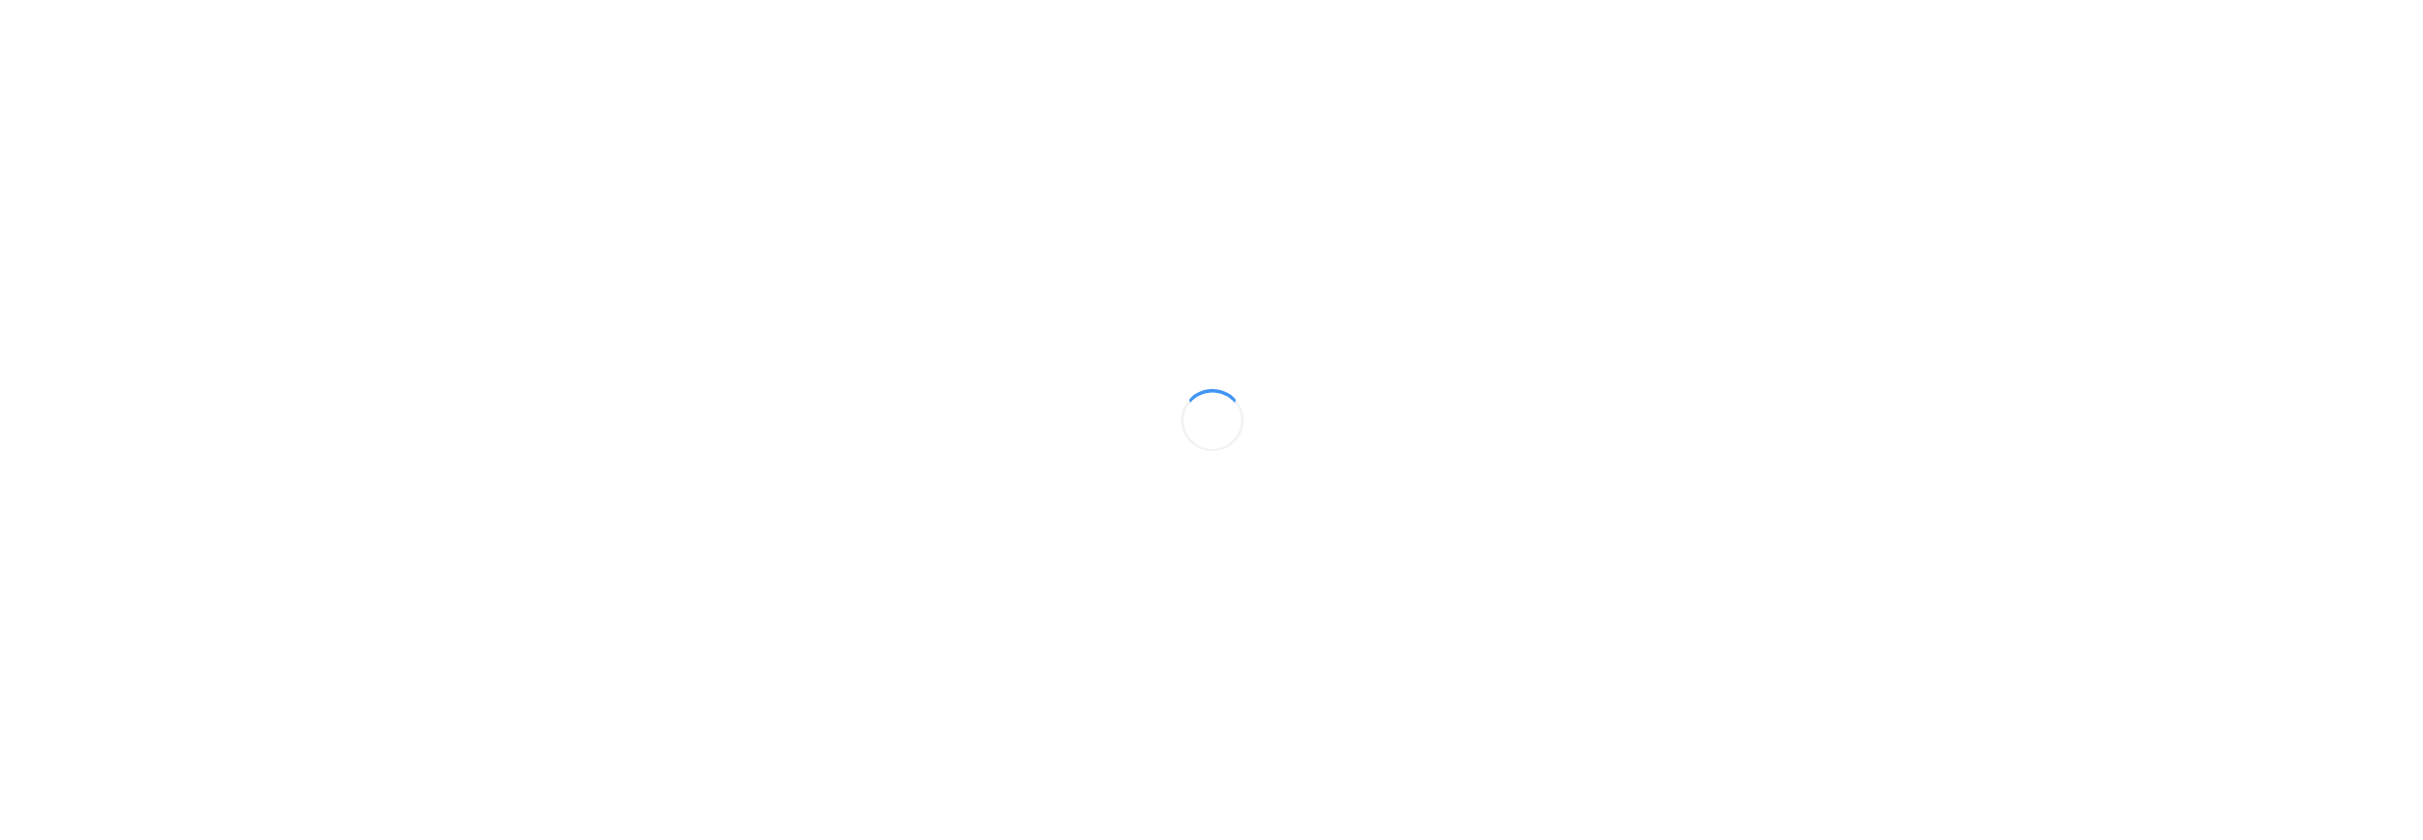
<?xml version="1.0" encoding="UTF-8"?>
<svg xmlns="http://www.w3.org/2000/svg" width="2423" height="840">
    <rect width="100%" height="100%" fill="#FFFFFF"/>
    <path d="M 1212 389 C 1203 389 1194 393 1189 400 L 1190 403 C 1202 389 1223 389 1235 403 L 1236 400 C 1231 393 1222 389 1212 389 Z" fill="#4295F5"/>
    <path d="M 1236 400 C 1247 412 1246 431 1235 442 L 1233 440 C 1243 430 1244 414 1235 403 Z" fill="#F3F3F3"/>
    <path d="M 1235 442 C 1222 454 1202 454 1190 442 L 1192 440 C 1203 452 1222 452 1233 440 Z" fill="#F3F3F3"/>
    <path d="M 1181 416 C 1182 410 1185 404 1189 400 L 1190 403 C 1181 414 1182 430 1192 440 L 1190 442 C 1182 434 1181 427 1181 416 Z" fill="#F3F3F3"/>
</svg>
